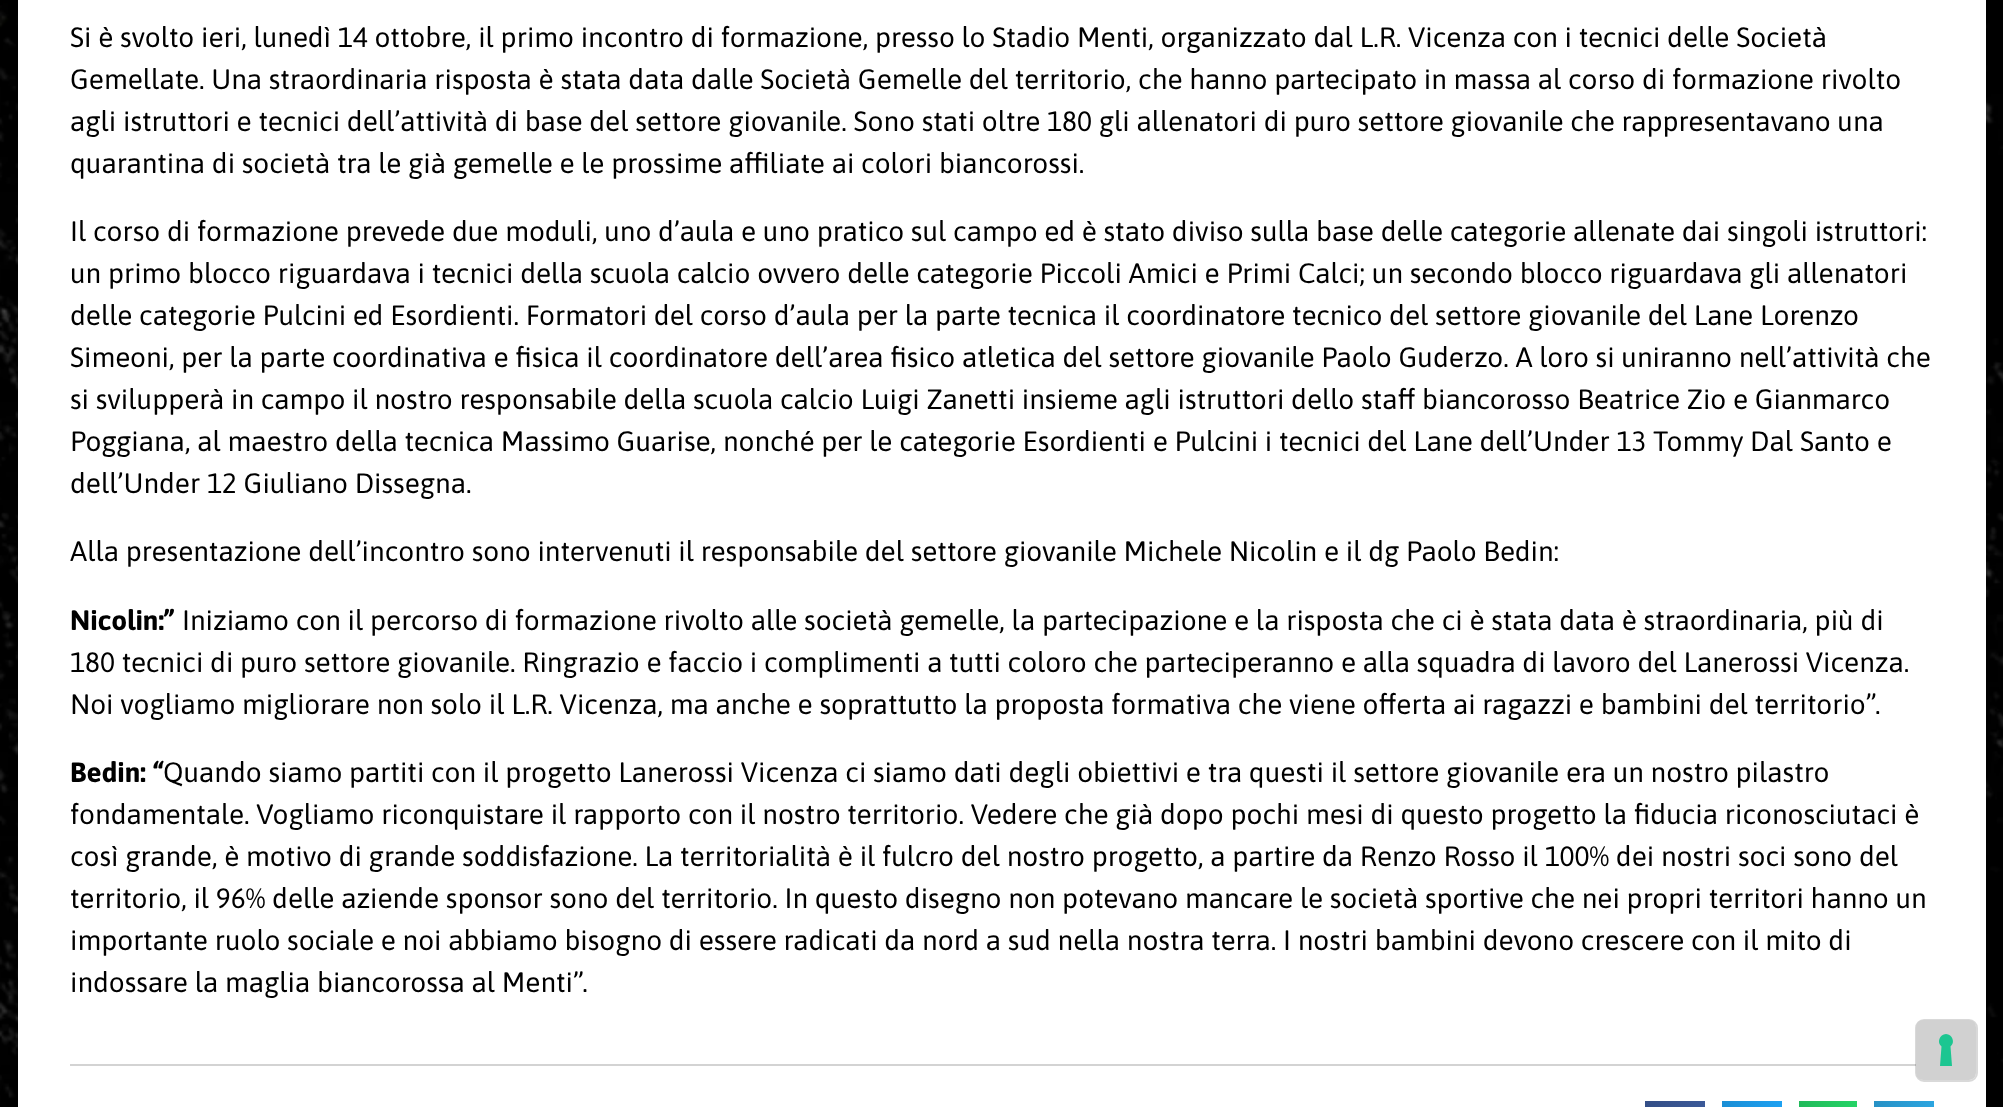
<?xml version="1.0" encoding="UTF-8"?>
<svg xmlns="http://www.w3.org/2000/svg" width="2003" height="1107">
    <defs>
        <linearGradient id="g1" gradientUnits="userSpaceOnUse" x1="1645" y1="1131" x2="1705" y2="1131"><stop offset="0" stop-color="#344E86"/><stop offset="1" stop-color="#3B5998"/></linearGradient>
        <linearGradient id="g2" gradientUnits="userSpaceOnUse" x1="1722" y1="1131" x2="1782" y2="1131"><stop offset="0" stop-color="#1A8ED5"/><stop offset="1" stop-color="#1DA1F2"/></linearGradient>
        <linearGradient id="g3" gradientUnits="userSpaceOnUse" x1="1799" y1="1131" x2="1857" y2="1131"><stop offset="0" stop-color="#21BA5A"/><stop offset="1" stop-color="#25D366"/></linearGradient>
        <linearGradient id="g4" gradientUnits="userSpaceOnUse" x1="1874" y1="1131" x2="1934" y2="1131"><stop offset="0" stop-color="#2791C5"/><stop offset="1" stop-color="#2CA5E0"/></linearGradient>
    </defs>
    <rect width="100%" height="100%" fill="#FFFFFF"/>
    <image x="0" y="0" width="2003" height="1107" href="img_01.png"/>
    <rect x="18" y="0" width="1968" height="1107" fill="#FFFFFF"/>
    <text font-family="Asap" font-size="28" fill="#000000">
        <tspan x="70" y="47">Si è svolto ieri, lunedì 14 ottobre, il primo incontro di formazione, presso lo Stadio Menti, organizzato dal L.R. Vicenza con i tecnici delle Società</tspan>
        <tspan x="70" y="89">Gemellate. Una straordinaria risposta è stata data dalle Società Gemelle del territorio, che hanno partecipato in massa al corso di formazione rivolto</tspan>
        <tspan x="70" y="131">agli istruttori e tecnici dell’attività di base del settore giovanile. Sono stati oltre 180 gli allenatori di puro settore giovanile che rappresentavano una</tspan>
        <tspan x="70" y="173">quarantina di società tra le già gemelle e le prossime affiliate ai colori biancorossi.</tspan>
    </text>
    <text font-family="Asap" font-size="28" fill="#000000">
        <tspan x="70" y="241">Il corso di formazione prevede due moduli, uno d’aula e uno pratico sul campo ed è stato diviso sulla base delle categorie allenate dai singoli istruttori:</tspan>
        <tspan x="70" y="283">un primo blocco riguardava i tecnici della scuola calcio ovvero delle categorie Piccoli Amici e Primi Calci; un secondo blocco riguardava gli allenatori</tspan>
        <tspan x="70" y="325">delle categorie Pulcini ed Esordienti. Formatori del corso d’aula per la parte tecnica il coordinatore tecnico del settore giovanile del Lane Lorenzo</tspan>
        <tspan x="70" y="367">Simeoni, per la parte coordinativa e fisica il coordinatore dell’area fisico atletica del settore giovanile Paolo Guderzo. A loro si uniranno nell’attività che</tspan>
        <tspan x="70" y="409">si svilupperà in campo il nostro responsabile della scuola calcio Luigi Zanetti insieme agli istruttori dello staff biancorosso Beatrice Zio e Gianmarco</tspan>
        <tspan x="70" y="451">Poggiana, al maestro della tecnica Massimo Guarise, nonché per le categorie Esordienti e Pulcini i tecnici del Lane dell’Under 13 Tommy Dal Santo e</tspan>
        <tspan x="70" y="493">dell’Under 12 Giuliano Dissegna.</tspan>
    </text>
    <text x="70" y="561" font-family="Asap" font-size="28" fill="#000000">Alla presentazione dell’incontro sono intervenuti il responsabile del settore giovanile Michele Nicolin e il dg Paolo Bedin:</text>
    <text x="70" y="630" font-family="Asap" font-size="28" font-weight="700" fill="#000000">Nicolin:”</text>
    <text x="182" y="630" font-family="Asap" font-size="28" fill="#000000">Iniziamo con il percorso di formazione rivolto alle società gemelle, la partecipazione e la risposta che ci è stata data è straordinaria, più di</text>
    <text font-family="Asap" font-size="28" fill="#000000">
        <tspan x="70" y="672">180 tecnici di puro settore giovanile. Ringrazio e faccio i complimenti a tutti coloro che parteciperanno e alla squadra di lavoro del Lanerossi Vicenza.</tspan>
        <tspan x="70" y="714">Noi vogliamo migliorare non solo il L.R. Vicenza, ma anche e soprattutto la proposta formativa che viene offerta ai ragazzi e bambini del territorio”.</tspan>
    </text>
    <text x="70" y="782" font-family="Asap" font-size="28" font-weight="700" fill="#000000">Bedin: “</text>
    <text x="163" y="782" font-family="Asap" font-size="28" fill="#000000">Quando siamo partiti con il progetto Lanerossi Vicenza ci siamo dati degli obiettivi e tra questi il settore giovanile era un nostro pilastro</text>
    <text font-family="Asap" font-size="28" fill="#000000">
        <tspan x="70" y="824">fondamentale. Vogliamo riconquistare il rapporto con il nostro territorio. Vedere che già dopo pochi mesi di questo progetto la fiducia riconosciutaci è</tspan>
        <tspan x="70" y="866">così grande, è motivo di grande soddisfazione. La territorialità è il fulcro del nostro progetto, a partire da Renzo Rosso il 100% dei nostri soci sono del</tspan>
        <tspan x="70" y="908">territorio, il 96% delle aziende sponsor sono del territorio. In questo disegno non potevano mancare le società sportive che nei propri territori hanno un</tspan>
        <tspan x="70" y="950">importante ruolo sociale e noi abbiamo bisogno di essere radicati da nord a sud nella nostra terra. I nostri bambini devono crescere con il mito di</tspan>
        <tspan x="70" y="992">indossare la maglia biancorossa al Menti”.</tspan>
    </text>
    <rect x="70" y="1064" width="1846" height="2" fill="#D3D3D3"/>
    <rect x="1645" y="1101" width="60" height="6" fill="url(#g1)"/>
    <rect x="1722" y="1101" width="60" height="6" fill="url(#g2)"/>
    <rect x="1799" y="1101" width="58" height="6" fill="url(#g3)"/>
    <rect x="1874" y="1101" width="60" height="6" fill="url(#g4)"/>
    <rect x="1916" y="1020" width="61" height="61" rx="8" fill="none" stroke="#000000" stroke-opacity="0.15" stroke-width="2"/>
    <rect x="1916" y="1020" width="60" height="60" rx="7" fill="#D1D1D1"/>
    <path d="M 1946 1034 C 1952.5 1034.5 1955.5 1042.5 1950.5 1046.5 L 1952 1066 H 1940 L 1941.5 1046.5 C 1936.5 1042.5 1939.5 1034.5 1946 1034 Z" fill="#1CC691" fill-rule="evenodd"/>
</svg>
